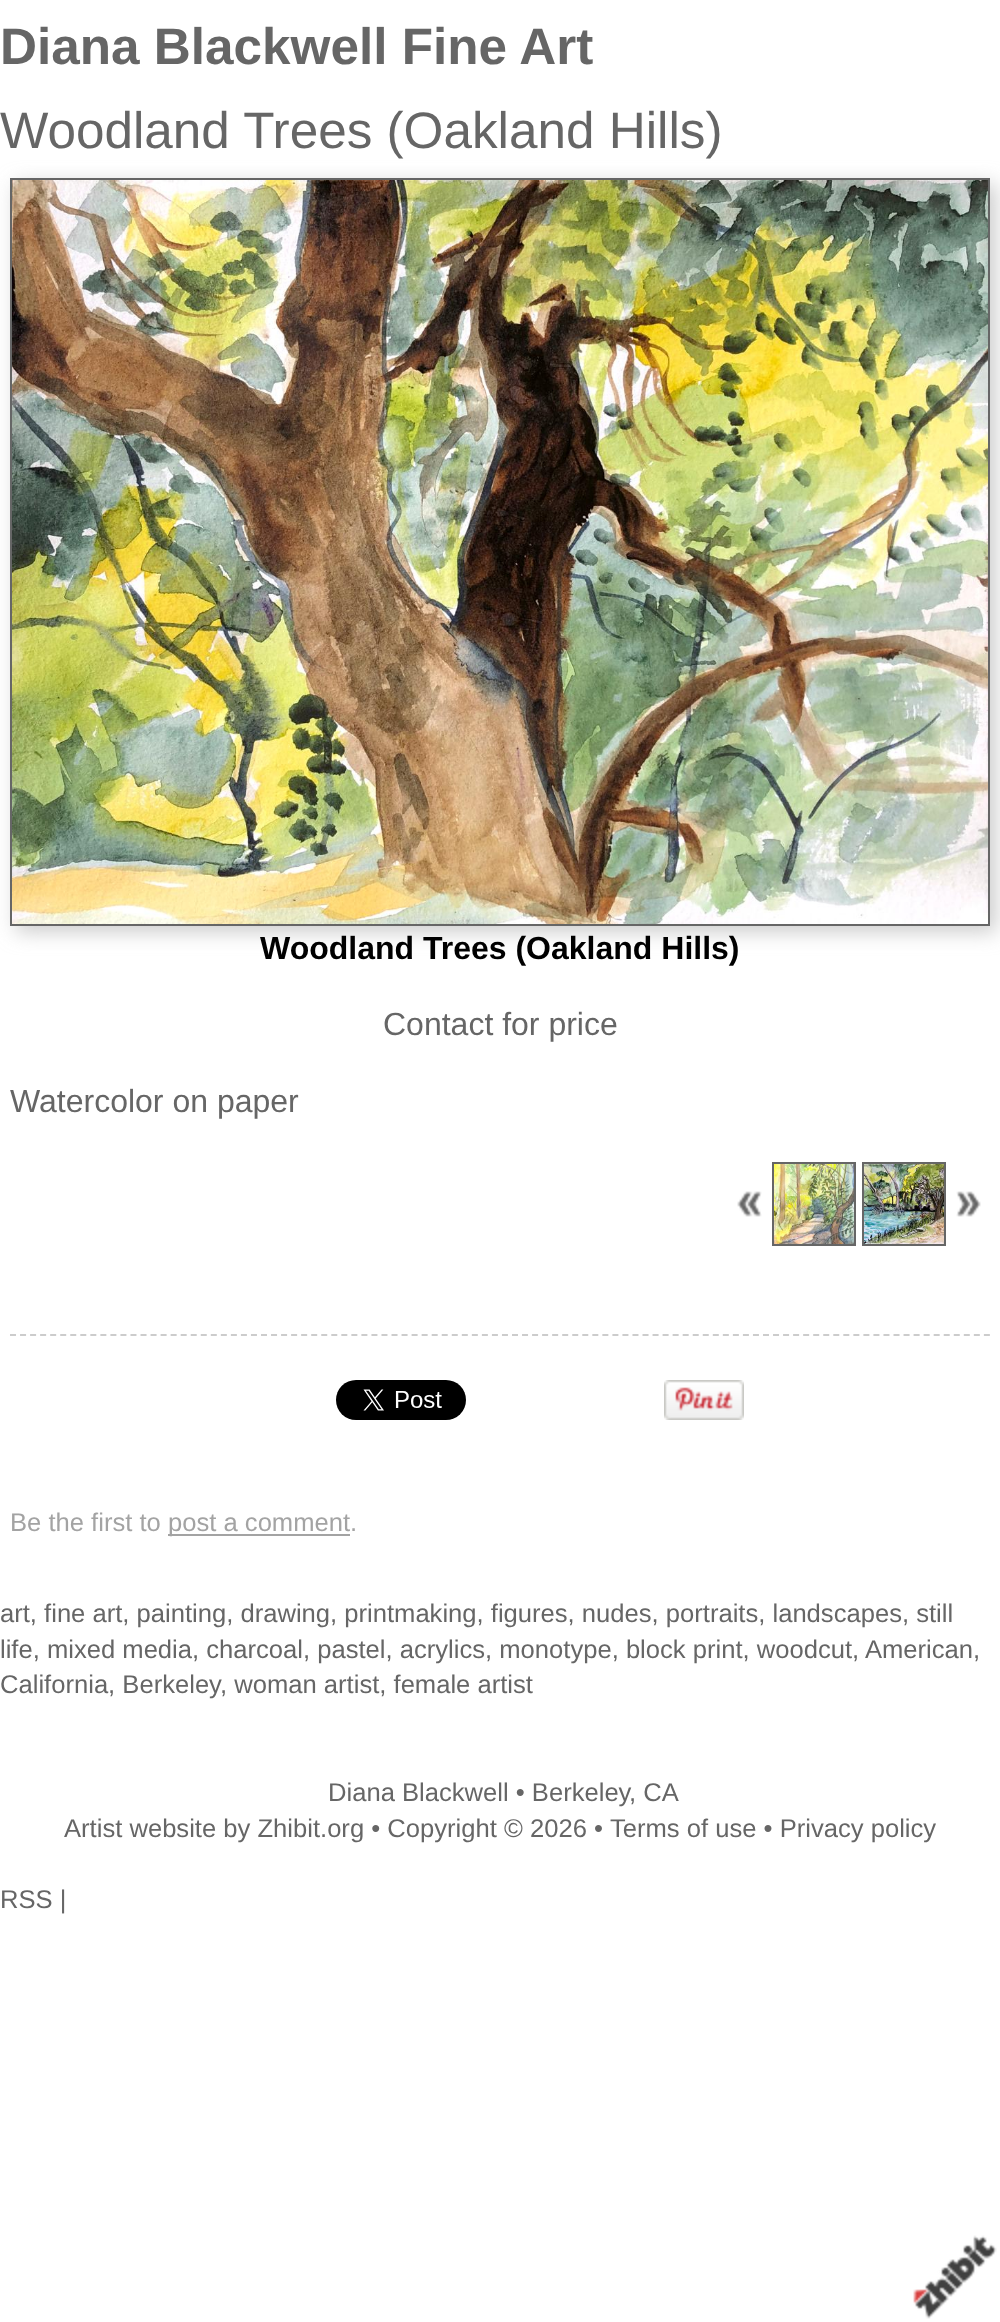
<?xml version="1.0" encoding="UTF-8"?>
<svg xmlns="http://www.w3.org/2000/svg" width="1000" height="2322">
    <defs>
        <filter id="blur1" x="-50%" y="-200%" width="200%" height="500%"><feGaussianBlur stdDeviation="10"/></filter>
    </defs>
    <rect width="100%" height="100%" fill="#FFFFFF"/>
    <text x="0" y="64" font-family="Liberation Sans" font-size="51.25" font-weight="700" fill="#666666">Diana Blackwell Fine Art</text>
    <text x="0" y="148" font-family="Liberation Sans" font-size="51.25" fill="#666666">Woodland Trees (Oakland Hills)</text>
    <rect x="16" y="184" width="980" height="748" fill="#CCCCCC" filter="url(#blur1)"/>
    <rect x="11" y="179" width="978" height="746" fill="none" stroke="#666666" stroke-width="2"/>
    <image x="12" y="180" width="976" height="744" href="img_01.png"/>
    <text x="260" y="959" font-family="Liberation Sans" font-size="32" font-weight="700" fill="#000000">Woodland Trees (Oakland Hills)</text>
    <text x="383" y="1035" font-family="Liberation Sans" font-size="32" fill="#666666">Contact for price</text>
    <text x="10" y="1112" font-family="Liberation Sans" font-size="32" fill="#666666">Watercolor on paper</text>
    <image x="737" y="1191" width="25" height="26" href="img_02.png"/>
    <rect x="773" y="1163" width="82" height="82" fill="none" stroke="#666666" stroke-width="2"/>
    <image x="774" y="1164" width="80" height="80" href="img_03.png"/>
    <rect x="863" y="1163" width="82" height="82" fill="none" stroke="#666666" stroke-width="2"/>
    <image x="864" y="1164" width="80" height="80" href="img_04.png"/>
    <image x="956" y="1191" width="25" height="26" href="img_05.png"/>
    <path d="M 10 1335 H 990" fill="none" stroke="#CCCCCC" stroke-width="2" stroke-dasharray="6 4.04"/>
    <image x="336" y="1380" width="130" height="40" href="img_06.png"/>
    <image x="664" y="1380" width="80" height="40" href="img_07.png"/>
    <text x="10" y="1531" font-family="Liberation Sans" font-size="25.6" fill="#A3A3A3">Be the first to</text>
    <rect x="168" y="1534" width="182" height="2" fill="#A3A3A3"/>
    <text x="168" y="1531" font-family="Liberation Sans" font-size="25.6" fill="#A3A3A3">post a comment.</text>
    <text font-family="Liberation Sans" font-size="25.6" fill="#666666">
        <tspan x="0" y="1622">art, fine art, painting, drawing, printmaking, figures, nudes, portraits, landscapes, still</tspan>
        <tspan x="0" y="1658">life, mixed media, charcoal, pastel, acrylics, monotype, block print, woodcut, American,</tspan>
        <tspan x="0" y="1693">California, Berkeley, woman artist, female artist</tspan>
    </text>
    <text x="328" y="1801" font-family="Liberation Sans" font-size="25.6" fill="#666666">Diana Blackwell • Berkeley</text>
    <text x="629" y="1801" font-family="Liberation Sans" font-size="25.6" fill="#666666">, CA</text>
    <text x="64" y="1837" font-family="Liberation Sans" font-size="25.6" fill="#666666">Artist website by Zhibit.org • Copyright © 2026 •</text>
    <text x="610" y="1837" font-family="Liberation Sans" font-size="25.6" fill="#666666">Terms of use • Privacy policy</text>
    <text x="0" y="1908" font-family="Liberation Sans" font-size="25.6" fill="#666666">RSS |</text>
    <image x="913" y="2235" width="84" height="84" href="img_08.png"/>
</svg>
